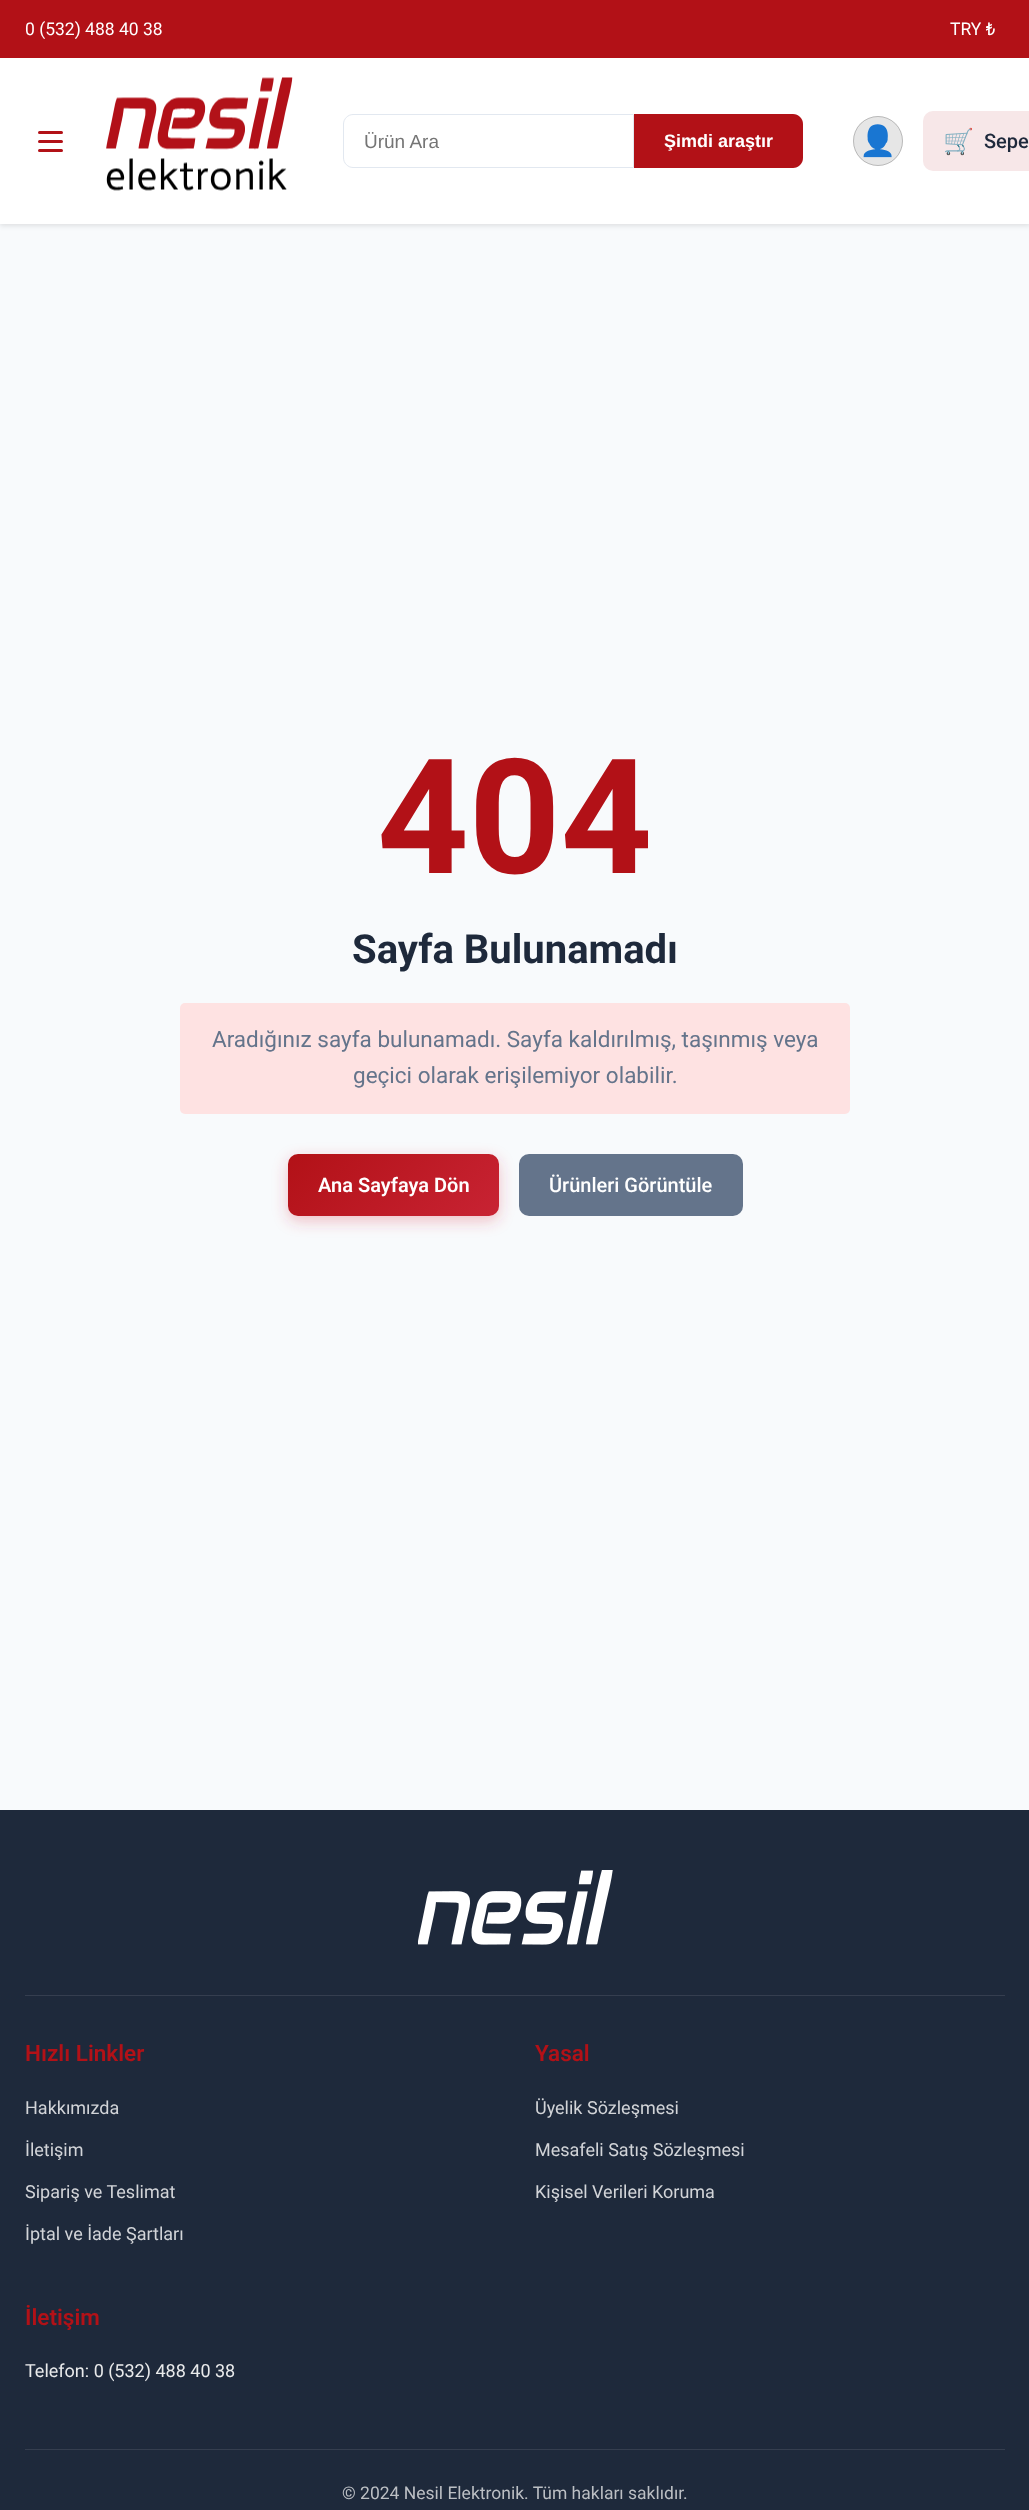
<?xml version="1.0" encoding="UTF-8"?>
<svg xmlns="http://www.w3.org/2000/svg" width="1029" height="2510">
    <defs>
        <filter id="blur1" x="-50%" y="-200%" width="200%" height="500%"><feGaussianBlur stdDeviation="2.5"/></filter>
        <filter id="blur2" x="-50%" y="-200%" width="200%" height="500%"><feGaussianBlur stdDeviation="7.5"/></filter>
        <linearGradient id="g1" gradientUnits="userSpaceOnUse" x1="325" y1="1117" x2="462" y2="1253"><stop offset="0" stop-color="#B21117"/><stop offset="1" stop-color="#C82333"/></linearGradient>
    </defs>
    <rect width="100%" height="100%" fill="#F8FAFC"/>
    <rect x="0" y="60" width="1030" height="166" fill="#000000" fill-opacity="0.1" filter="url(#blur1)"/>
    <rect x="0" y="0" width="1029" height="58" fill="#B21117"/>
    <text x="25" y="35" font-family="Roboto" font-size="17.5" fill="#FFFFFF">0 (532) 488 40 38</text>
    <text x="950" y="35" font-family="Roboto" font-size="17.5" fill="#FFFFFF">TRY ₺</text>
    <rect x="0" y="58" width="1029" height="166" fill="#FFFFFF"/>
    <rect x="38" y="131" width="25" height="3" rx="1.5" fill="#B21117"/>
    <rect x="38" y="140" width="25" height="3" rx="1.5" fill="#B21117"/>
    <rect x="38" y="149" width="25" height="3" rx="1.5" fill="#B21117"/>
    <image x="106" y="77" width="187" height="114" href="img_01.png"/>
    <path d="M 353 114.5 H 633.5 V 167.5 H 353 C 348 167.5 343.5 163 343.5 158 V 124 C 343.5 119 348 114.5 353 114.5 Z" fill="none" stroke="#E2E8F0"/>
    <text x="364" y="148" font-family="Liberation Sans" font-size="19" fill="#757575">Ürün Ara</text>
    <path d="M 634 114 H 793 C 798.5 114 803 118.5 803 124 V 158 C 803 163.5 798.5 168 793 168 H 634 Z" fill="#B21117"/>
    <text x="664" y="147" font-family="Liberation Sans" font-size="18" font-weight="700" fill="#FFFFFF">Şimdi araştır</text>
    <circle cx="878" cy="141" r="25" fill="#E6E6E6"/>
    <circle cx="878" cy="141" r="24.5" fill="none" stroke="#030303" stroke-opacity="0.2"/>
    <text x="859" y="151" font-family="Noto Color Emoji" font-size="30" fill="#030303">👤</text>
    <rect x="923" y="111" width="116" height="60" rx="10" fill="#F7E7E8"/>
    <text x="943" y="150" font-family="Noto Color Emoji" font-size="25" fill="#030303">🛒</text>
    <text x="984" y="148" font-family="Roboto" font-size="20" font-weight="500" fill="#1E293B">Sepe</text>
    <text x="377" y="873" font-family="Roboto" font-size="160" font-weight="700" fill="#B21117">404</text>
    <text x="352" y="963" font-family="Roboto" font-size="40" font-weight="700" fill="#1E293B">Sayfa Bulunamadı</text>
    <rect x="180" y="1003" width="670" height="111" rx="5" fill="#FEE2E2"/>
    <text x="212" y="1047" font-family="Roboto" font-size="22.5" fill="#64748B">Aradığınız sayfa bulunamadı. Sayfa kaldırılmış, taşınmış veya</text>
    <text x="353" y="1083" font-family="Roboto" font-size="22.5" fill="#64748B">geçici olarak erişilemiyor olabilir.</text>
    <rect x="519" y="1154" width="224" height="62" rx="10" fill="#64748B"/>
    <rect x="288" y="1159" width="211" height="62" rx="10" fill="#DC3545" fill-opacity="0.3" filter="url(#blur2)"/>
    <rect x="288" y="1154" width="211" height="62" rx="10" fill="url(#g1)"/>
    <text x="318" y="1192" font-family="Roboto" font-size="20" font-weight="600" fill="#FFFFFF">Ana Sayfaya Dön</text>
    <text x="549" y="1192" font-family="Roboto" font-size="20" font-weight="500" fill="#FFFFFF">Ürünleri Görüntüle</text>
    <rect x="0" y="1810" width="1029" height="700" fill="#1E293B"/>
    <rect x="25" y="1995" width="980" height="1" fill="#353E4F"/>
    <image x="418" y="1870" width="195" height="75" href="img_02.png"/>
    <text x="25" y="2061" font-family="Roboto" font-size="22.5" font-weight="600" fill="#B21117">Hızlı Linkler</text>
    <text x="25" y="2114" font-family="Roboto" font-size="18" fill="#D2D4D8">Hakkımızda</text>
    <text x="25" y="2156" font-family="Roboto" font-size="18" fill="#D2D4D8">İletişim</text>
    <text x="25" y="2198" font-family="Roboto" font-size="18" fill="#D2D4D8">Sipariş ve Teslimat</text>
    <text x="25" y="2240" font-family="Roboto" font-size="18" fill="#D2D4D8">İptal ve İade Şartları</text>
    <text x="535" y="2061" font-family="Roboto" font-size="22.5" font-weight="600" fill="#B21117">Yasal</text>
    <text x="535" y="2114" font-family="Roboto" font-size="18" fill="#D2D4D8">Üyelik Sözleşmesi</text>
    <text x="535" y="2156" font-family="Roboto" font-size="18" fill="#D2D4D8">Mesafeli Satış Sözleşmesi</text>
    <text x="535" y="2198" font-family="Roboto" font-size="18" fill="#D2D4D8">Kişisel Verileri Koruma</text>
    <text x="25" y="2325" font-family="Roboto" font-size="22.5" font-weight="600" fill="#B21117">İletişim</text>
    <text x="25" y="2377" font-family="Roboto" font-size="18" fill="#E9EAEB">Telefon: 0 (532) 488 40 38</text>
    <rect x="25" y="2449" width="980" height="1" fill="#353E4F"/>
    <text x="342" y="2499" font-family="Roboto" font-size="17.5" fill="#BCBFC4">© 2024 Nesil Elektronik. Tüm hakları saklıdır.</text>
</svg>
